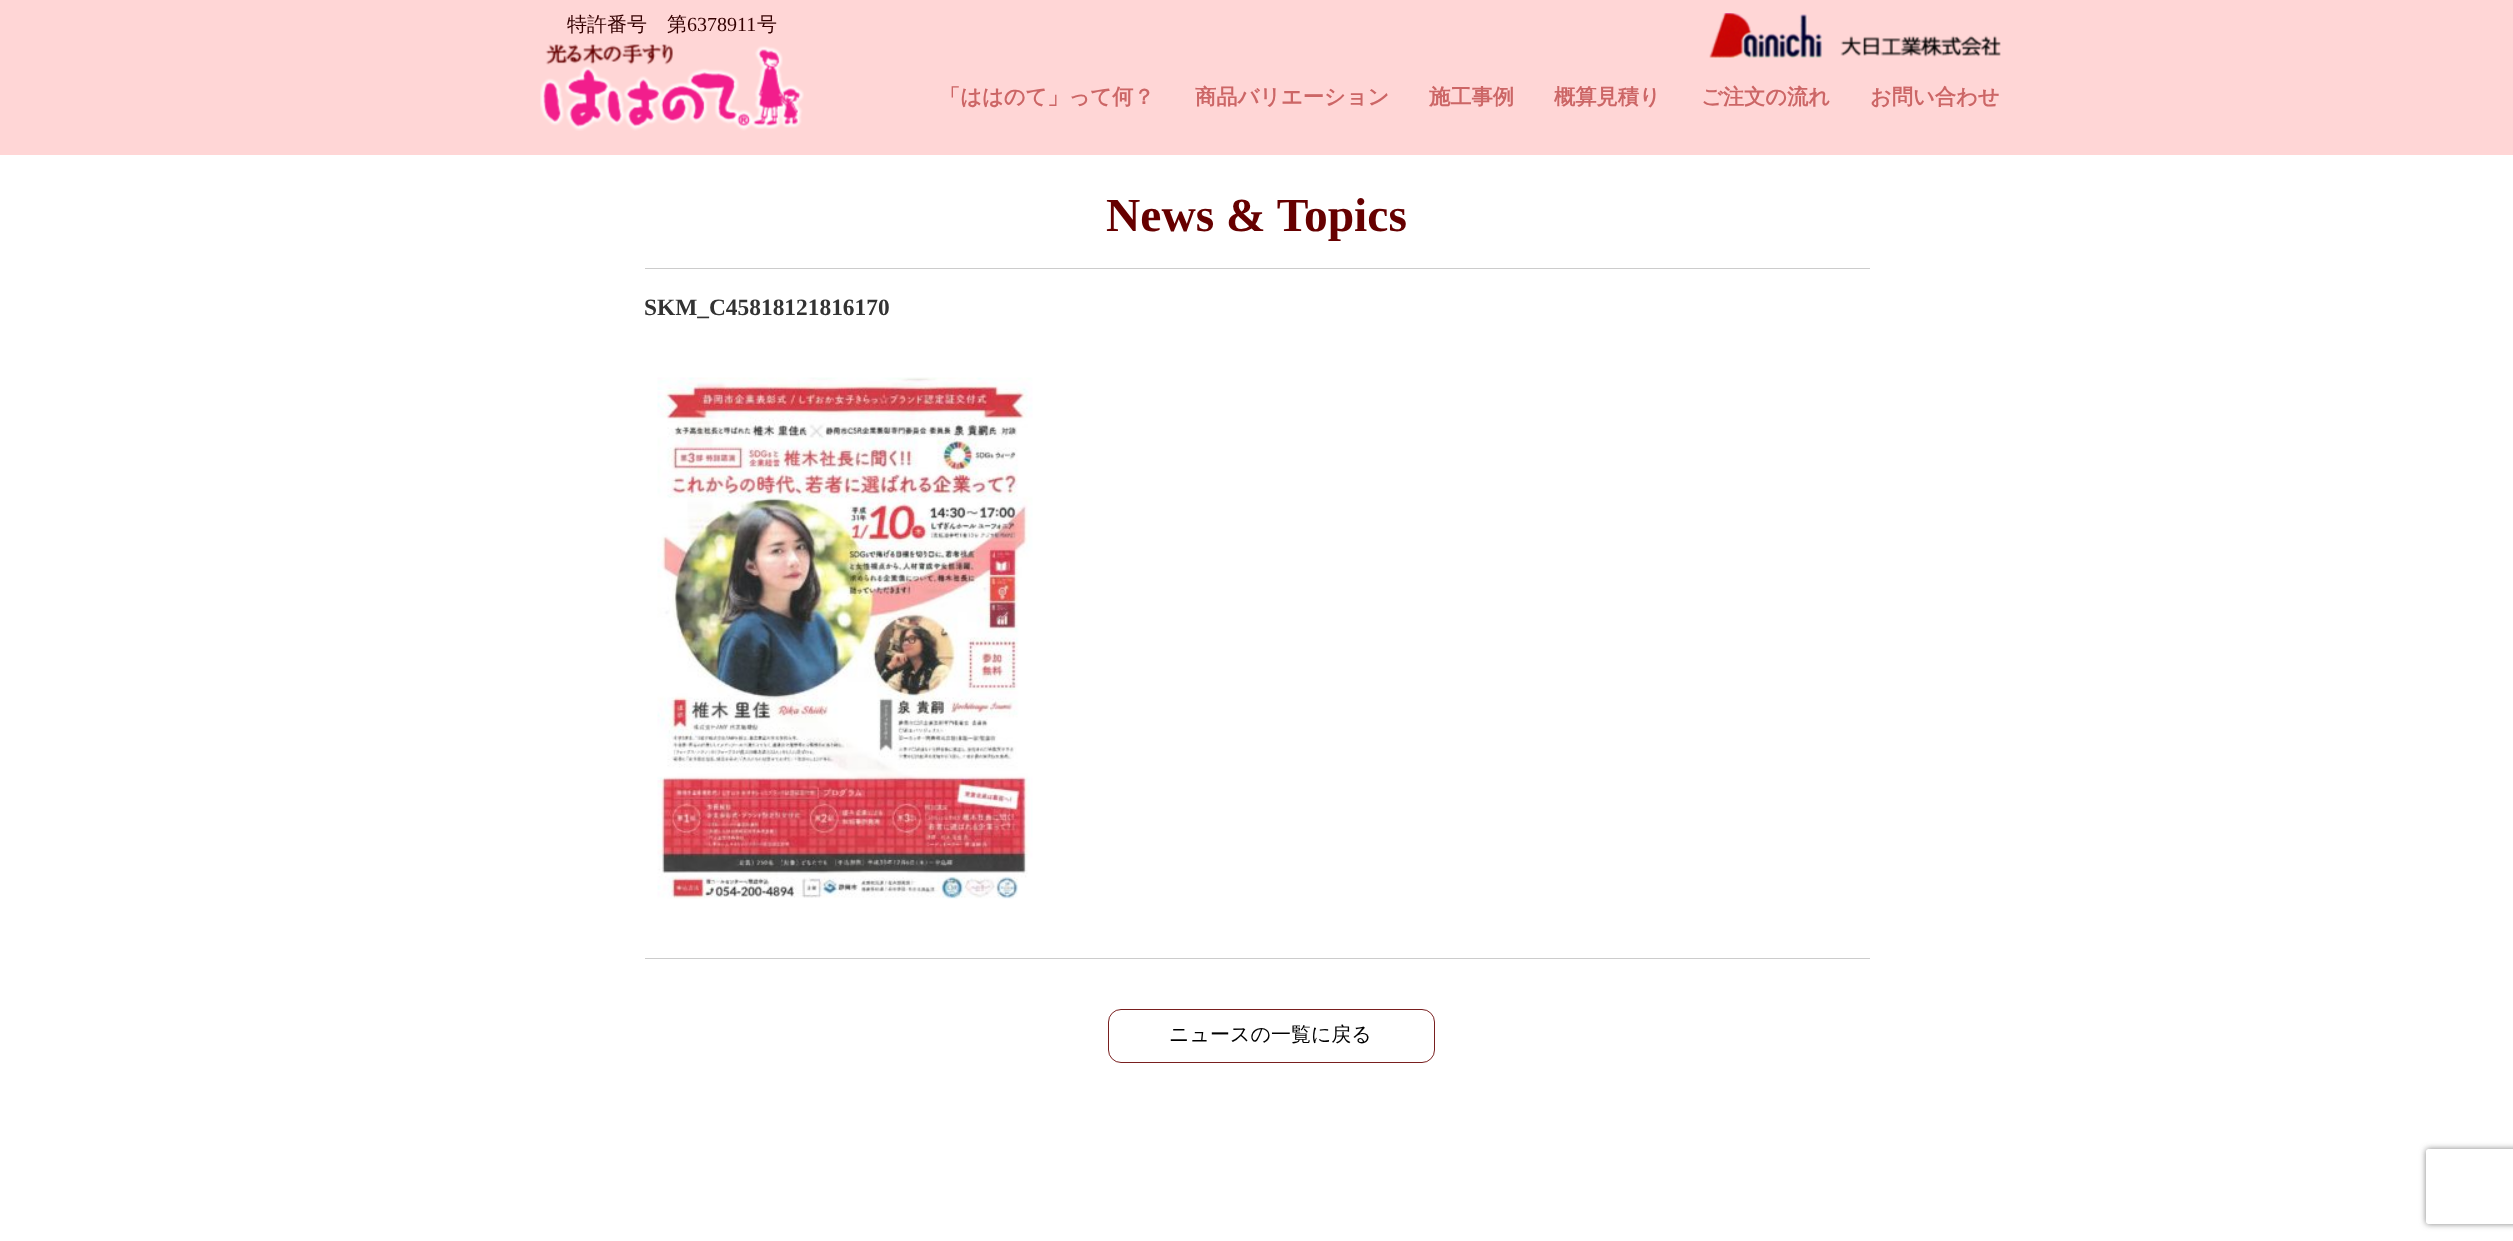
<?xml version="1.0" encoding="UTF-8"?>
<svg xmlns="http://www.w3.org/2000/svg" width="2513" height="1241">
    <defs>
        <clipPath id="clip1"><path d="M 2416 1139 H 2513 V 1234 H 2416 Z M 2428.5 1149 H 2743.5 C 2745 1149 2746 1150 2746 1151.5 V 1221.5 C 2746 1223 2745 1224 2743.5 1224 H 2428.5 C 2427 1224 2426 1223 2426 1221.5 V 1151.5 C 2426 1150 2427 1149 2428.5 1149 Z" clip-rule="evenodd"/></clipPath>
        <filter id="blur1" x="-50%" y="-200%" width="200%" height="500%"><feGaussianBlur stdDeviation="3"/></filter>
    </defs>
    <rect width="100%" height="100%" fill="#FFFFFF"/>
    <rect x="0" y="0" width="2513" height="155" fill="#FFD6D6"/>
    <text x="567" y="31" font-family="WenQuanYi Zen Hei" font-size="20" font-weight="500" fill="#330000">特許番号　第</text>
    <text x="687" y="31" font-family="Liberation Serif" font-size="20" fill="#330000">6378911</text>
    <text x="757" y="31" font-family="WenQuanYi Zen Hei" font-size="20" font-weight="500" fill="#330000">号</text>
    <image x="540" y="44" width="264" height="87" href="img_01.png"/>
    <image x="1709" y="13" width="292" height="45" href="img_02.png"/>
    <text x="939" y="104" font-family="WenQuanYi Zen Hei" font-size="21.25" font-weight="700" fill="#CC6666">「ははのて」って何？</text>
    <text x="1195" y="104" font-family="WenQuanYi Zen Hei" font-size="21.25" font-weight="700" fill="#CC6666">商品バリエーション</text>
    <text x="1429" y="104" font-family="WenQuanYi Zen Hei" font-size="21.25" font-weight="700" fill="#CC6666">施工事例</text>
    <text x="1554" y="104" font-family="WenQuanYi Zen Hei" font-size="21.25" font-weight="700" fill="#CC6666">概算見積り</text>
    <text x="1701" y="104" font-family="WenQuanYi Zen Hei" font-size="21.25" font-weight="700" fill="#CC6666">ご注文の流れ</text>
    <text x="1870" y="104" font-family="WenQuanYi Zen Hei" font-size="21.25" font-weight="700" fill="#CC6666">お問い合わせ</text>
    <text x="1106" y="231" font-family="Liberation Serif" font-size="47.5" font-weight="700" fill="#660000">News &amp; Topics</text>
    <rect x="645" y="268" width="1225" height="1" fill="#CCCCCC"/>
    <rect x="645" y="958" width="1225" height="1" fill="#CCCCCC"/>
    <text x="644" y="315" font-family="Liberation Serif" font-size="23.4" font-weight="700" fill="#333333">SKM_C45818121816170</text>
    <image x="657" y="377" width="376" height="522" href="img_03.png"/>
    <rect x="1108.5" y="1009.5" width="326" height="53" rx="12.5" fill="none" stroke="#791F1F"/>
    <text x="1169" y="1041" font-family="WenQuanYi Zen Hei" font-size="20" font-weight="500" fill="#000000">ニュースの一覧に戻る</text>
    <g clip-path="url(#clip1)">
        <rect x="2426" y="1149" width="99" height="75" rx="2.5" fill="#808080" filter="url(#blur1)"/>
    </g>
</svg>
